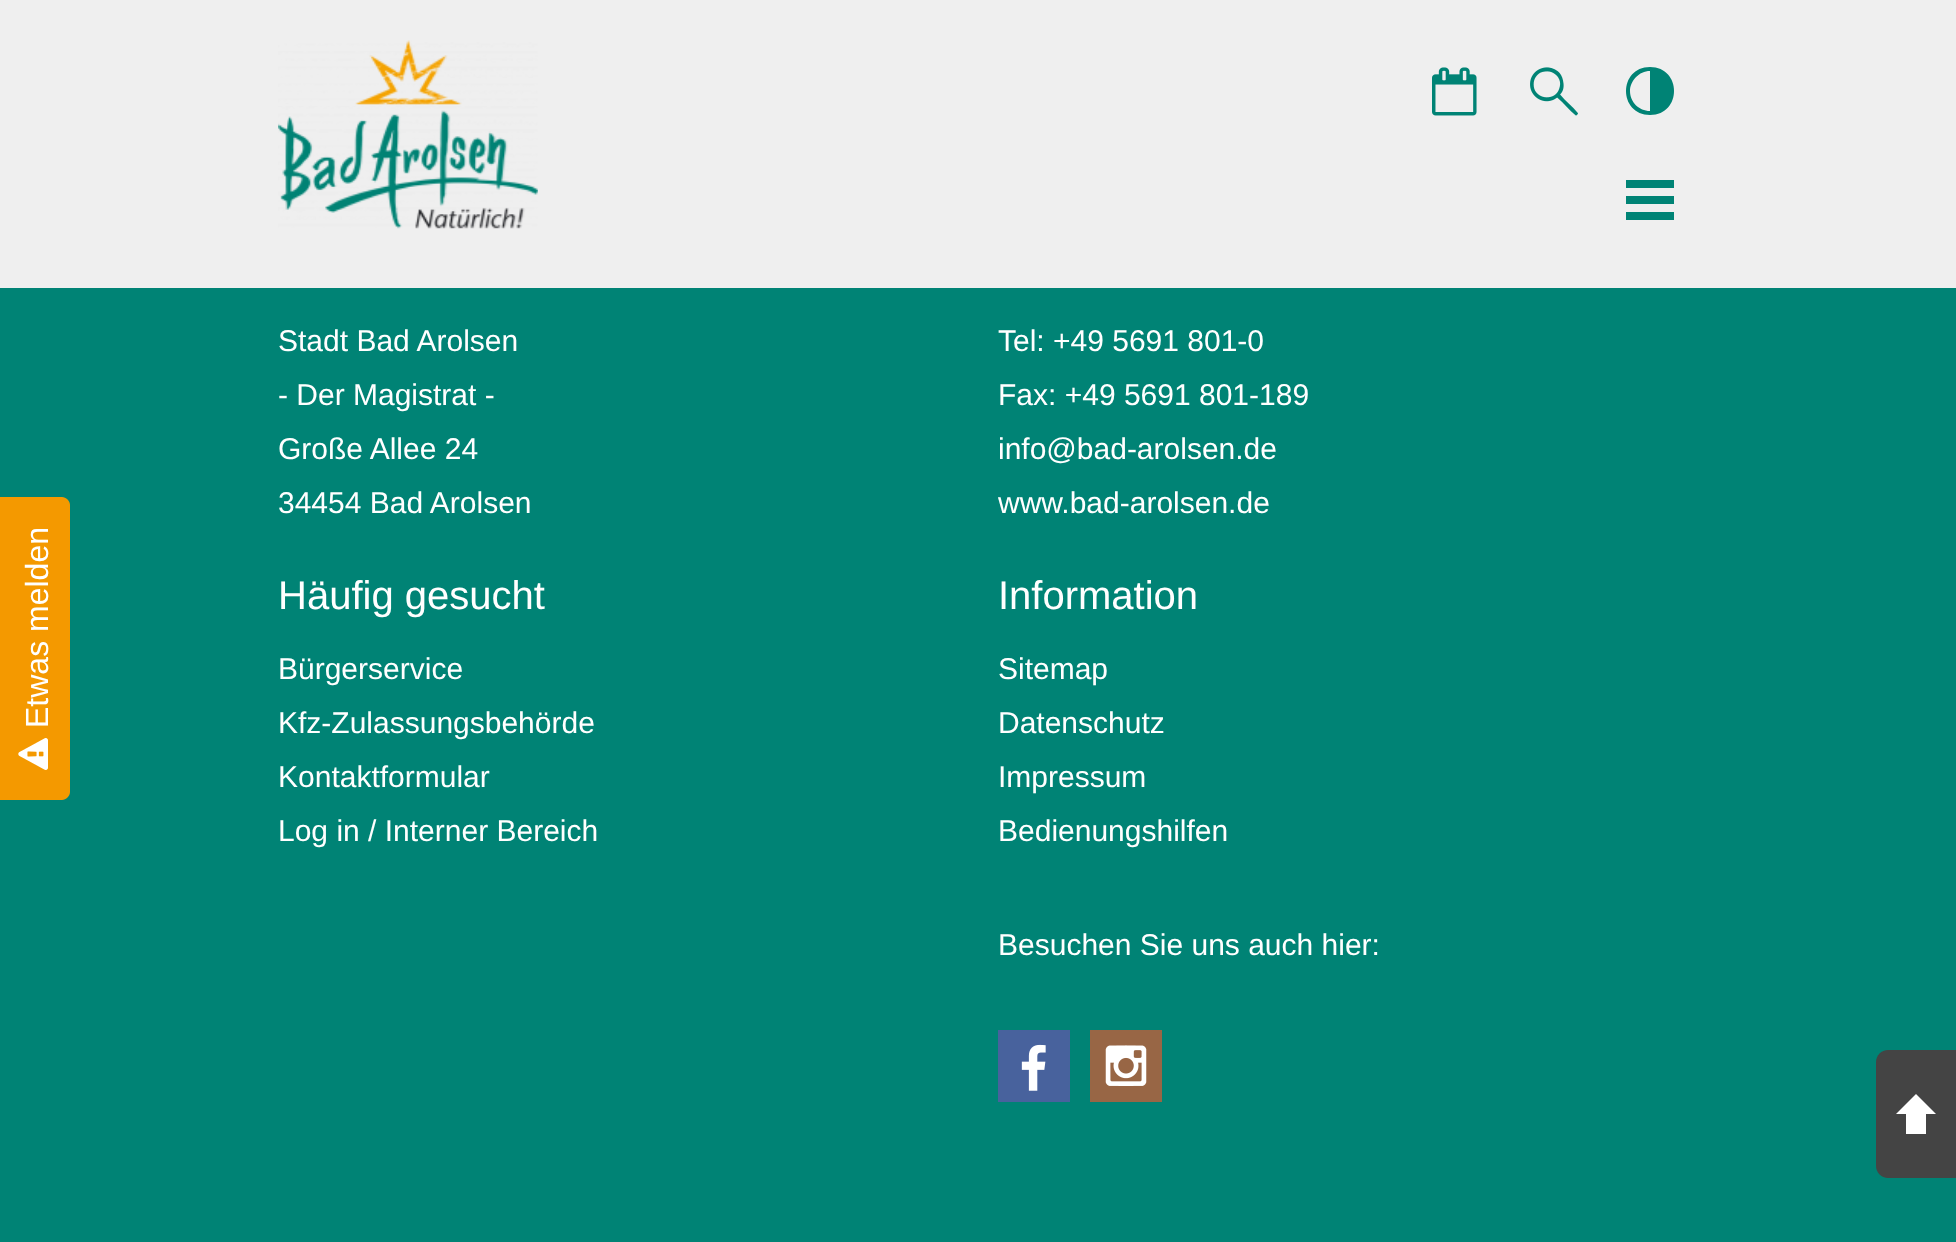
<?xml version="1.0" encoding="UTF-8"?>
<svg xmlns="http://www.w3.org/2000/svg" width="1956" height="1242">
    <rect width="100%" height="100%" fill="#008375"/>
    <rect x="0" y="0" width="1956" height="288" fill="#EFEFEF"/>
    <image x="278" y="40" width="260" height="189" href="img_01.png"/>
    <image x="1432" y="67" width="45" height="49" href="img_02.png"/>
    <image x="1530" y="67" width="48" height="49" href="img_03.png"/>
    <path d="M 1650 67 C 1618 67 1618 115 1650 115 C 1682 115 1682 67 1650 67 Z M 1630 91 C 1630 81 1639 71 1650 71 V 111 C 1639 111 1630 102 1630 91 Z" fill="#008375"/>
    <rect x="1626" y="180" width="48" height="8" fill="#008375"/>
    <rect x="1626" y="196" width="48" height="8" fill="#008375"/>
    <rect x="1626" y="212" width="48" height="8" fill="#008375"/>
    <path d="M 0 800 V 497 H 62 C 66 497 70 501 70 505 V 792 C 70 796 66 800 62 800 Z" fill="#F49900"/>
    <text x="48" y="728" transform="rotate(-90 48 728)" font-family="Liberation Sans" font-size="32" fill="#FFFFFF">Etwas melden</text>
    <image x="18" y="738" width="30" height="32" href="img_04.png"/>
    <text font-family="Liberation Sans" font-size="30" fill="#FFFFFF">
        <tspan x="278" y="351">Stadt Bad Arolsen</tspan>
        <tspan x="278" y="405">- Der Magistrat -</tspan>
        <tspan x="278" y="459">Große Allee 24</tspan>
        <tspan x="278" y="513">34454 Bad Arolsen</tspan>
    </text>
    <text font-family="Liberation Sans" font-size="30" fill="#FFFFFF">
        <tspan x="998" y="351">Tel: +49 5691 801-0</tspan>
        <tspan x="998" y="405">Fax: +49 5691 801-189</tspan>
        <tspan x="998" y="459">info@bad-arolsen.de</tspan>
        <tspan x="998" y="513">www.bad-arolsen.de</tspan>
    </text>
    <text x="278" y="609" font-family="Liberation Sans" font-size="40" fill="#FFFFFF">Häufig gesucht</text>
    <text font-family="Liberation Sans" font-size="30" fill="#FFFFFF">
        <tspan x="278" y="679">Bürgerservice</tspan>
        <tspan x="278" y="733">Kfz-Zulassungsbehörde</tspan>
        <tspan x="278" y="787">Kontaktformular</tspan>
        <tspan x="278" y="841">Log in / Interner Bereich</tspan>
    </text>
    <text x="998" y="609" font-family="Liberation Sans" font-size="40" fill="#FFFFFF">Information</text>
    <text font-family="Liberation Sans" font-size="30" fill="#FFFFFF">
        <tspan x="998" y="679">Sitemap</tspan>
        <tspan x="998" y="733">Datenschutz</tspan>
        <tspan x="998" y="787">Impressum</tspan>
        <tspan x="998" y="841">Bedienungshilfen</tspan>
    </text>
    <text x="998" y="955" font-family="Liberation Sans" font-size="30" fill="#FFFFFF">Besuchen Sie uns auch hier:</text>
    <rect x="998" y="1030" width="72" height="72" fill="#48629D"/>
    <image x="1021" y="1044" width="25" height="47" href="img_05.png"/>
    <rect x="1090" y="1030" width="72" height="72" fill="#986645"/>
    <image x="1105" y="1045" width="42" height="41" href="img_06.png"/>
    <path d="M 1888 1050 H 1956 V 1178 H 1888 C 1881.5 1178 1876 1172.5 1876 1166 V 1062 C 1876 1055.5 1881.5 1050 1888 1050 Z" fill="#444444"/>
    <path d="M 1936 1114 H 1896 L 1916 1094 Z" fill="#FFFFFF"/>
    <rect x="1906" y="1114" width="20" height="20" fill="#FFFFFF"/>
</svg>
